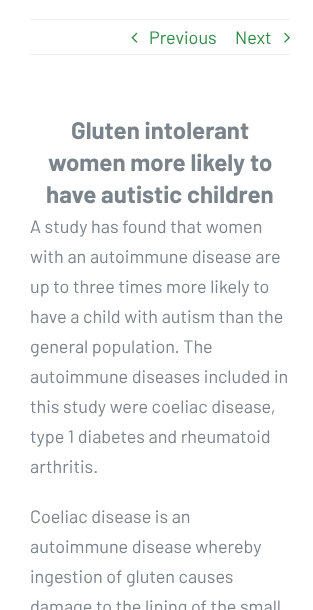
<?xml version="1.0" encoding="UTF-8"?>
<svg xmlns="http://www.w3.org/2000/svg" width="313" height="610">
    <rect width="100%" height="100%" fill="#FFFFFF"/>
    <rect x="30" y="19" width="260" height="1" fill="#EEEEEE"/>
    <rect x="30" y="54" width="260" height="1" fill="#EEEEEE"/>
    <image x="131" y="32" width="7" height="11" href="img_01.png"/>
    <text x="149" y="44" font-family="Barlow" font-size="18" fill="#328C47">Previous</text>
    <text x="235" y="44" font-family="Barlow" font-size="18" fill="#328C47">Next</text>
    <image x="284" y="32" width="6" height="11" href="img_02.png"/>
    <text x="71" y="139" font-family="Barlow" font-size="24" font-weight="700" fill="#7B838B">Gluten intolerant</text>
    <text x="48" y="171" font-family="Barlow" font-size="24" font-weight="700" fill="#7B838B">women more likely to</text>
    <text x="46" y="203" font-family="Barlow" font-size="24" font-weight="700" fill="#7B838B">have autistic children</text>
    <text font-family="Barlow" font-size="18" fill="#7B838B">
        <tspan x="30" y="233">A study has found that women</tspan>
        <tspan x="30" y="263">with an autoimmune disease are</tspan>
        <tspan x="30" y="293">up to three times more likely to</tspan>
        <tspan x="30" y="323">have a child with autism than the</tspan>
        <tspan x="30" y="353">general population. The</tspan>
        <tspan x="30" y="383">autoimmune diseases included in</tspan>
        <tspan x="30" y="413">this study were coeliac disease,</tspan>
        <tspan x="30" y="443">type 1 diabetes and rheumatoid</tspan>
        <tspan x="30" y="473">arthritis.</tspan>
    </text>
    <text font-family="Barlow" font-size="18" fill="#7B838B">
        <tspan x="30" y="523">Coeliac disease is an</tspan>
        <tspan x="30" y="553">autoimmune disease whereby</tspan>
        <tspan x="30" y="583">ingestion of gluten causes</tspan>
        <tspan x="30" y="613">damage to the lining of the small</tspan>
    </text>
</svg>
